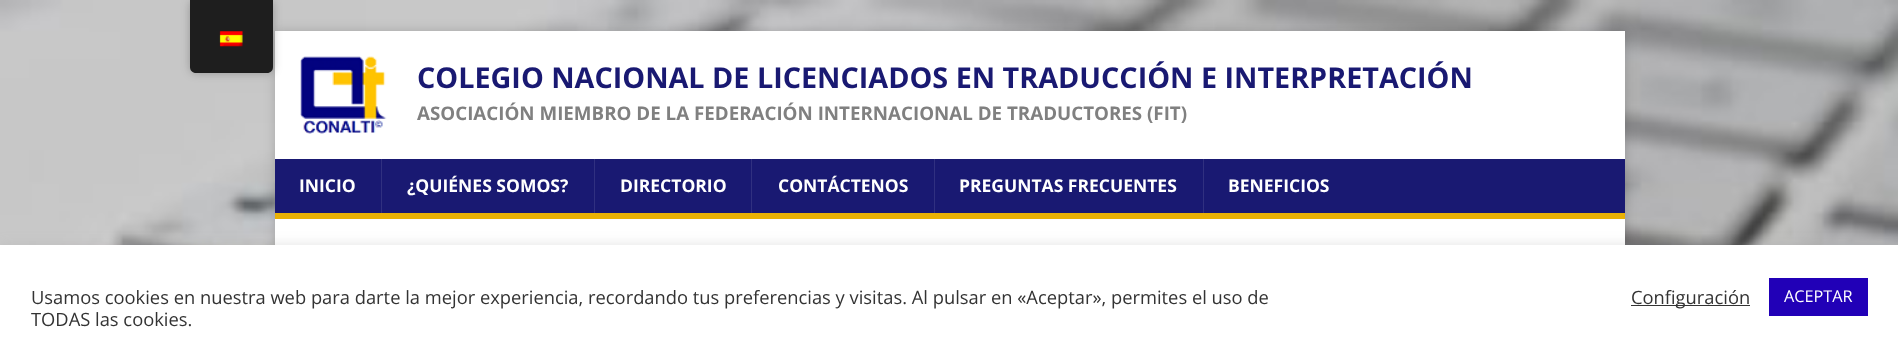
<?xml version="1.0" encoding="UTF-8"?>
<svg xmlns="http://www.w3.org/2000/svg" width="1898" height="347">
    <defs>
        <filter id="blur1" x="-50%" y="-200%" width="200%" height="500%"><feGaussianBlur stdDeviation="6"/></filter>
        <filter id="blur2" x="-50%" y="-200%" width="200%" height="500%"><feGaussianBlur stdDeviation="5"/></filter>
    </defs>
    <rect width="100%" height="100%" fill="#FFFFFF"/>
    <image x="0" y="0" width="1898" height="245" href="img_01.png"/>
    <rect x="275" y="31" width="1350" height="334" fill="#323232" fill-opacity="0.17" filter="url(#blur1)"/>
    <rect x="275" y="31" width="1350" height="128" fill="#FFFFFF"/>
    <rect x="190" y="0" width="83" height="73" rx="6" fill="#000000" fill-opacity="0.25" filter="url(#blur2)"/>
    <path d="M 190 0 H 273 V 67 C 273 70.5 270.5 73 267 73 H 196 C 192.5 73 190 70.5 190 67 Z" fill="#1E1E1E"/>
    <image x="219" y="31" width="24" height="16" href="img_02.png"/>
    <image x="300" y="56" width="87" height="78" href="img_03.png"/>
    <text x="417" y="88" font-family="Open Sans" font-size="28.75" font-weight="700" fill="#191972">COLEGIO NACIONAL DE LICENCIADOS EN TRADUCCIÓN E INTERPRETACIÓN</text>
    <text x="417" y="120" font-family="Open Sans" font-size="18.75" font-weight="700" fill="#808080">ASOCIACIÓN MIEMBRO DE LA FEDERACIÓN INTERNACIONAL DE TRADUCTORES (FIT)</text>
    <rect x="275" y="159" width="1350" height="54" fill="#191972"/>
    <rect x="275" y="213" width="1350" height="6" fill="#EAB104"/>
    <text x="299" y="192" font-family="Open Sans" font-size="17.5" font-weight="700" fill="#FFFFFF">INICIO</text>
    <rect x="381" y="159" width="1" height="54" fill="#303080"/>
    <text x="407" y="192" font-family="Open Sans" font-size="17.5" font-weight="700" fill="#FFFFFF">¿QUIÉNES SOMOS?</text>
    <rect x="594" y="159" width="1" height="54" fill="#303080"/>
    <text x="620" y="192" font-family="Open Sans" font-size="17.5" font-weight="700" fill="#FFFFFF">DIRECTORIO</text>
    <rect x="751" y="159" width="1" height="54" fill="#303080"/>
    <text x="778" y="192" font-family="Open Sans" font-size="17.5" font-weight="700" fill="#FFFFFF">CONTÁCTENOS</text>
    <rect x="934" y="159" width="1" height="54" fill="#303080"/>
    <text x="959" y="192" font-family="Open Sans" font-size="17.5" font-weight="700" fill="#FFFFFF">PREGUNTAS FRECUENTES</text>
    <rect x="1203" y="159" width="1" height="54" fill="#303080"/>
    <text x="1228" y="192" font-family="Open Sans" font-size="17.5" font-weight="700" fill="#FFFFFF">BENEFICIOS</text>
    <rect x="275" y="219" width="1350" height="26" fill="#FFFFFF"/>
    <rect x="0" y="244" width="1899" height="102" fill="#ACABAB" fill-opacity="0.3" filter="url(#blur1)"/>
    <rect x="0" y="245" width="1898" height="102" fill="#FFFFFF"/>
    <text font-family="Open Sans" font-size="18.33" fill="#333333">
        <tspan x="31" y="304">Usamos cookies en nuestra web para darte la mejor experiencia, recordando tus preferencias y visitas. Al pulsar en «Aceptar», permites el uso de</tspan>
        <tspan x="31" y="326">TODAS las cookies.</tspan>
    </text>
    <rect x="1631" y="305" width="119" height="1" fill="#333333"/>
    <text x="1631" y="304" font-family="Open Sans" font-size="18.33" fill="#333333">Configuración</text>
    <rect x="1769" y="278" width="99" height="38" fill="#2100B7"/>
    <text x="1784" y="302" font-family="Open Sans" font-size="16.25" fill="#FFFFFF">ACEPTAR</text>
</svg>
